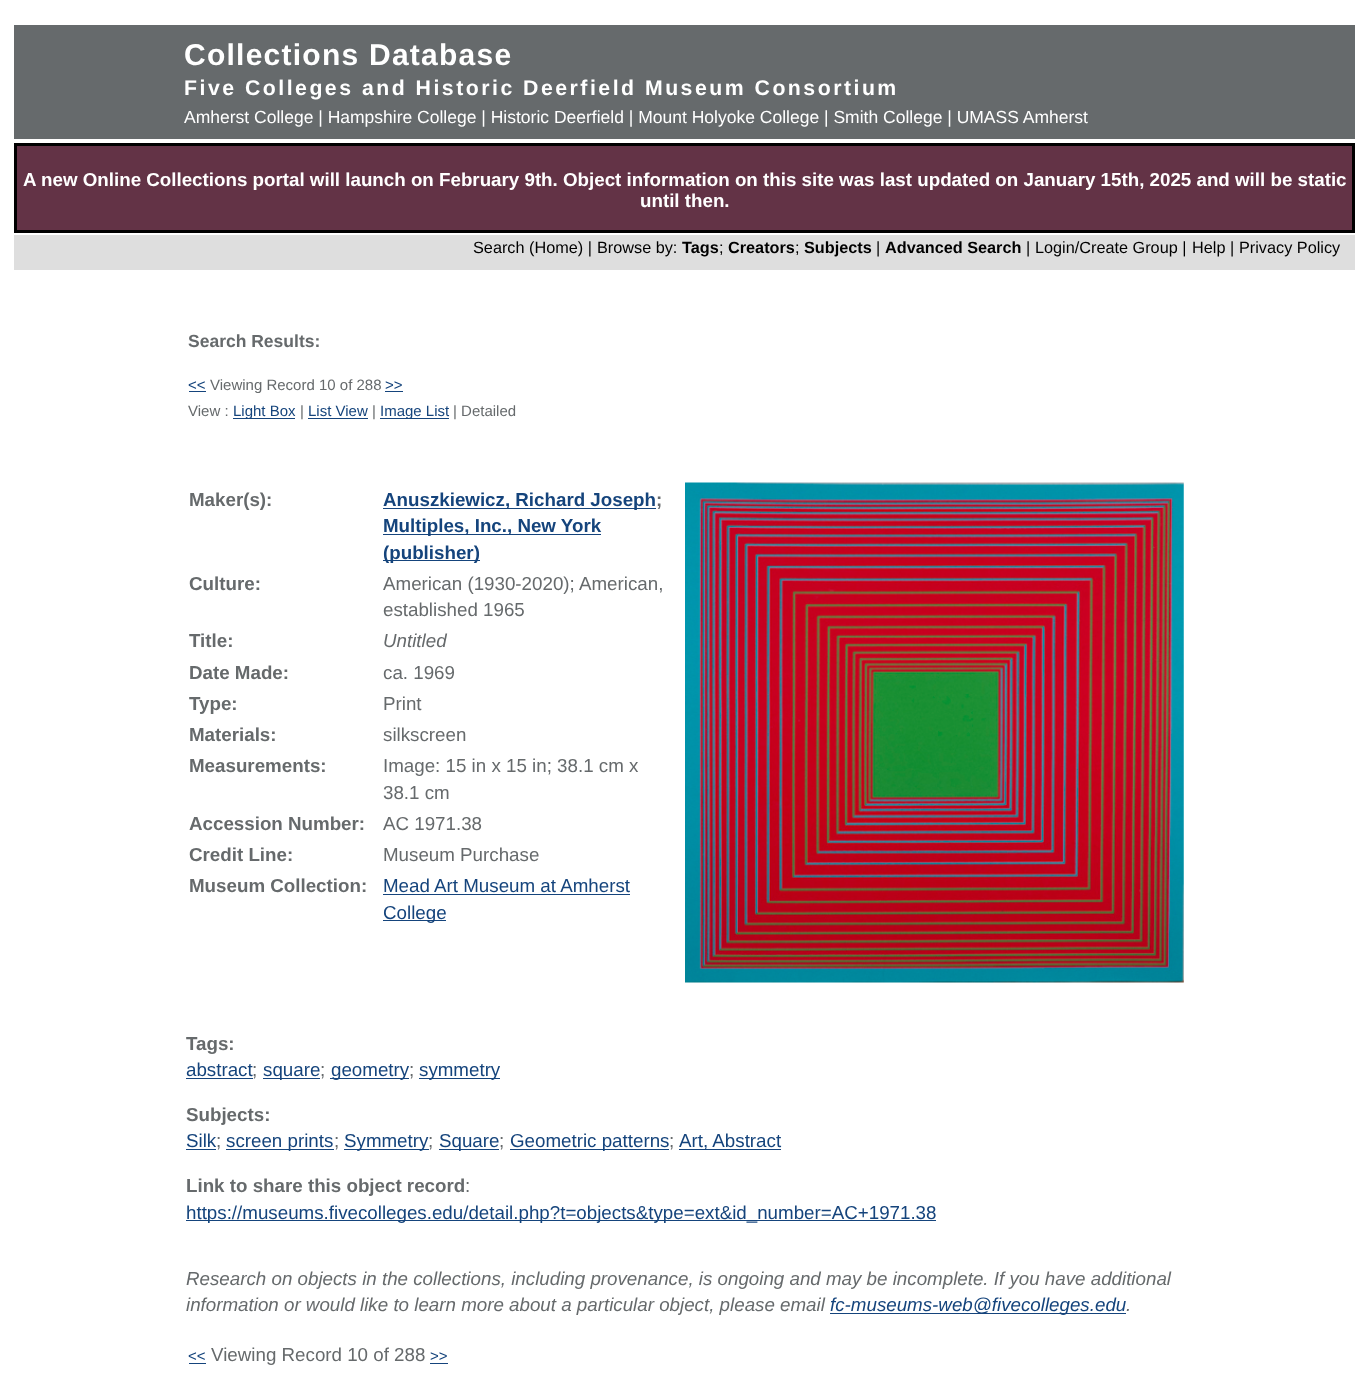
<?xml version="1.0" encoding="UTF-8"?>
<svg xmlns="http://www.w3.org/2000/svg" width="1368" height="1388">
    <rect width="100%" height="100%" fill="#FFFFFF"/>
    <rect x="14" y="25" width="1341" height="114" fill="#666A6C"/>
    <text x="184" y="65" font-family="Liberation Sans" font-size="30" font-weight="700" letter-spacing="1.25" fill="#FFFFFF">Collections Database</text>
    <text x="184" y="95" font-family="Liberation Sans" font-size="21.25" font-weight="700" letter-spacing="2.5" fill="#FFFFFF">Five Colleges and Historic Deerfield Museum Consortium</text>
    <text x="184" y="123" font-family="Liberation Sans" font-size="17.5" fill="#FFFFFF">Amherst College | Hampshire College | Historic Deerfield | Mount Holyoke College | Smith College | UMASS Amherst</text>
    <rect x="15.5" y="144.5" width="1338" height="87" fill="#633346" stroke="#000000" stroke-width="3"/>
    <text x="23" y="186" font-family="Liberation Sans" font-size="18.75" font-weight="700" fill="#FFFFFF">A new Online Collections portal will launch on February 9th. Object information on this site was last updated on January 15th, 2025 and will be static</text>
    <text x="640" y="207" font-family="Liberation Sans" font-size="18.75" font-weight="700" fill="#FFFFFF">until then.</text>
    <rect x="14" y="235" width="1341" height="35" fill="#DEDEDE"/>
    <text x="473" y="253" font-family="Liberation Sans" font-size="16.25" fill="#000000">Search (Home) |</text>
    <text x="597" y="253" font-family="Liberation Sans" font-size="16.25" fill="#000000">Browse by:</text>
    <text x="682" y="253" font-family="Liberation Sans" font-size="16.25" font-weight="700" fill="#000000">Tags</text>
    <text x="719" y="253" font-family="Liberation Sans" font-size="16.25" fill="#000000">;</text>
    <text x="728" y="253" font-family="Liberation Sans" font-size="16.25" font-weight="700" fill="#000000">Creators</text>
    <text x="795" y="253" font-family="Liberation Sans" font-size="16.25" fill="#000000">;</text>
    <text x="804" y="253" font-family="Liberation Sans" font-size="16.25" font-weight="700" fill="#000000">Subjects</text>
    <text x="876" y="253" font-family="Liberation Sans" font-size="16.25" fill="#000000">|</text>
    <text x="885" y="253" font-family="Liberation Sans" font-size="16.25" font-weight="700" fill="#000000">Advanced Search</text>
    <text x="1026" y="253" font-family="Liberation Sans" font-size="16.25" fill="#000000">|</text>
    <text x="1035" y="253" font-family="Liberation Sans" font-size="16.25" fill="#000000">Login/Create Group |</text>
    <text x="1192" y="253" font-family="Liberation Sans" font-size="16.25" fill="#000000">Help |</text>
    <text x="1239" y="253" font-family="Liberation Sans" font-size="16.25" fill="#000000">Privacy Policy</text>
    <text x="188" y="347" font-family="Liberation Sans" font-size="17.5" font-weight="700" fill="#666A6C">Search Results:</text>
    <text x="188" y="390" font-family="Liberation Sans" font-size="15" fill="#15447C">&lt;&lt;</text>
    <rect x="189" y="391" width="17" height="1" fill="#15447C"/>
    <text x="210" y="390" font-family="Liberation Sans" font-size="15" fill="#666A6C">Viewing Record 10 of 288</text>
    <text x="385" y="390" font-family="Liberation Sans" font-size="15" fill="#15447C">&gt;&gt;</text>
    <rect x="385" y="391" width="18" height="1" fill="#15447C"/>
    <text x="188" y="416" font-family="Liberation Sans" font-size="15" fill="#666A6C">View :</text>
    <rect x="233" y="418" width="62" height="1" fill="#15447C"/>
    <text x="233" y="416" font-family="Liberation Sans" font-size="15" fill="#15447C">Light Box</text>
    <text x="300" y="416" font-family="Liberation Sans" font-size="15" fill="#666A6C">|</text>
    <text x="308" y="416" font-family="Liberation Sans" font-size="15" fill="#15447C">List View</text>
    <rect x="308" y="418" width="60" height="1" fill="#15447C"/>
    <text x="372" y="416" font-family="Liberation Sans" font-size="15" fill="#666A6C">|</text>
    <rect x="380" y="418" width="69" height="1" fill="#15447C"/>
    <text x="380" y="416" font-family="Liberation Sans" font-size="15" fill="#15447C">Image List</text>
    <text x="453" y="416" font-family="Liberation Sans" font-size="15" fill="#666A6C">| Detailed</text>
    <text x="189" y="506" font-family="Liberation Sans" font-size="18.75" font-weight="700" fill="#666A6C">Maker(s):</text>
    <rect x="383" y="508" width="273" height="1" fill="#15447C"/>
    <text x="383" y="506" font-family="Liberation Sans" font-size="18.75" font-weight="700" fill="#15447C">Anuszkiewicz, Richard Joseph</text>
    <text x="656" y="506" font-family="Liberation Sans" font-size="18.75" font-weight="700" fill="#666A6C">;</text>
    <rect x="383" y="534" width="218" height="1" fill="#15447C"/>
    <text x="383" y="532" font-family="Liberation Sans" font-size="18.75" font-weight="700" fill="#15447C">Multiples, Inc., New York</text>
    <rect x="383" y="560" width="97" height="1" fill="#15447C"/>
    <text x="383" y="559" font-family="Liberation Sans" font-size="18.75" font-weight="700" fill="#15447C">(publisher)</text>
    <text x="189" y="590" font-family="Liberation Sans" font-size="18.75" font-weight="700" fill="#666A6C">Culture:</text>
    <text font-family="Liberation Sans" font-size="18.75" fill="#666A6C">
        <tspan x="383" y="590">American (1930-2020); American,</tspan>
        <tspan x="383" y="616">established 1965</tspan>
    </text>
    <text x="189" y="647" font-family="Liberation Sans" font-size="18.75" font-weight="700" fill="#666A6C">Title:</text>
    <text x="383" y="647" font-family="Liberation Sans" font-size="18.75" font-style="italic" fill="#666A6C">Untitled</text>
    <text x="189" y="679" font-family="Liberation Sans" font-size="18.75" font-weight="700" fill="#666A6C">Date Made:</text>
    <text x="383" y="679" font-family="Liberation Sans" font-size="18.75" fill="#666A6C">ca. 1969</text>
    <text x="189" y="710" font-family="Liberation Sans" font-size="18.75" font-weight="700" fill="#666A6C">Type:</text>
    <text x="383" y="710" font-family="Liberation Sans" font-size="18.75" fill="#666A6C">Print</text>
    <text x="189" y="741" font-family="Liberation Sans" font-size="18.75" font-weight="700" fill="#666A6C">Materials:</text>
    <text x="383" y="741" font-family="Liberation Sans" font-size="18.75" fill="#666A6C">silkscreen</text>
    <text x="189" y="772" font-family="Liberation Sans" font-size="18.75" font-weight="700" fill="#666A6C">Measurements:</text>
    <text font-family="Liberation Sans" font-size="18.75" fill="#666A6C">
        <tspan x="383" y="772">Image: 15 in x 15 in; 38.1 cm x</tspan>
        <tspan x="383" y="799">38.1 cm</tspan>
    </text>
    <text x="189" y="830" font-family="Liberation Sans" font-size="18.75" font-weight="700" fill="#666A6C">Accession Number:</text>
    <text x="383" y="830" font-family="Liberation Sans" font-size="18.75" fill="#666A6C">AC 1971.38</text>
    <text x="189" y="861" font-family="Liberation Sans" font-size="18.75" font-weight="700" fill="#666A6C">Credit Line:</text>
    <text x="383" y="861" font-family="Liberation Sans" font-size="18.75" fill="#666A6C">Museum Purchase</text>
    <text x="189" y="892" font-family="Liberation Sans" font-size="18.75" font-weight="700" fill="#666A6C">Museum Collection:</text>
    <text x="383" y="892" font-family="Liberation Sans" font-size="18.75" fill="#15447C">Mead Art Museum at Amherst</text>
    <rect x="383" y="894" width="247" height="1" fill="#15447C"/>
    <rect x="383" y="920" width="63" height="1" fill="#15447C"/>
    <text x="383" y="919" font-family="Liberation Sans" font-size="18.75" fill="#15447C">College</text>
    <image x="685" y="482" width="499" height="501" href="img_01.png"/>
    <text x="186" y="1050" font-family="Liberation Sans" font-size="18.75" font-weight="700" fill="#666A6C">Tags:</text>
    <text x="186" y="1076" font-family="Liberation Sans" font-size="18.75" fill="#15447C">abstract</text>
    <rect x="186" y="1078" width="67" height="1" fill="#15447C"/>
    <text x="252" y="1076" font-family="Liberation Sans" font-size="18.75" fill="#666A6C">;</text>
    <rect x="263" y="1078" width="57" height="1" fill="#15447C"/>
    <text x="263" y="1076" font-family="Liberation Sans" font-size="18.75" fill="#15447C">square</text>
    <text x="320" y="1076" font-family="Liberation Sans" font-size="18.75" fill="#666A6C">;</text>
    <rect x="330" y="1078" width="79" height="1" fill="#15447C"/>
    <text x="331" y="1076" font-family="Liberation Sans" font-size="18.75" fill="#15447C">geometry</text>
    <text x="409" y="1076" font-family="Liberation Sans" font-size="18.75" fill="#666A6C">;</text>
    <rect x="419" y="1078" width="81" height="1" fill="#15447C"/>
    <text x="419" y="1076" font-family="Liberation Sans" font-size="18.75" fill="#15447C">symmetry</text>
    <text x="186" y="1121" font-family="Liberation Sans" font-size="18.75" font-weight="700" fill="#666A6C">Subjects:</text>
    <text x="186" y="1147" font-family="Liberation Sans" font-size="18.75" fill="#15447C">Silk</text>
    <rect x="186" y="1149" width="30" height="1" fill="#15447C"/>
    <text x="216" y="1147" font-family="Liberation Sans" font-size="18.75" fill="#666A6C">;</text>
    <rect x="226" y="1149" width="108" height="1" fill="#15447C"/>
    <text x="226" y="1147" font-family="Liberation Sans" font-size="18.75" fill="#15447C">screen prints</text>
    <text x="334" y="1147" font-family="Liberation Sans" font-size="18.75" fill="#666A6C">;</text>
    <rect x="344" y="1149" width="85" height="1" fill="#15447C"/>
    <text x="344" y="1147" font-family="Liberation Sans" font-size="18.75" fill="#15447C">Symmetry</text>
    <text x="428" y="1147" font-family="Liberation Sans" font-size="18.75" fill="#666A6C">;</text>
    <rect x="439" y="1149" width="60" height="1" fill="#15447C"/>
    <text x="439" y="1147" font-family="Liberation Sans" font-size="18.75" fill="#15447C">Square</text>
    <text x="499" y="1147" font-family="Liberation Sans" font-size="18.75" fill="#666A6C">;</text>
    <rect x="510" y="1149" width="159" height="1" fill="#15447C"/>
    <text x="510" y="1147" font-family="Liberation Sans" font-size="18.75" fill="#15447C">Geometric patterns</text>
    <text x="669" y="1147" font-family="Liberation Sans" font-size="18.75" fill="#666A6C">;</text>
    <rect x="679" y="1149" width="102" height="1" fill="#15447C"/>
    <text x="679" y="1147" font-family="Liberation Sans" font-size="18.75" fill="#15447C">Art, Abstract</text>
    <text x="186" y="1192" font-family="Liberation Sans" font-size="18.75" font-weight="700" fill="#666A6C">Link to share this object record</text>
    <text x="465" y="1192" font-family="Liberation Sans" font-size="18.75" fill="#666A6C">:</text>
    <rect x="186" y="1220" width="750" height="1" fill="#15447C"/>
    <text x="186" y="1219" font-family="Liberation Sans" font-size="18.75" fill="#15447C">https://museums.fivecolleges.edu/detail.php?t=objects&amp;type=ext&amp;id_number=AC+1971.38</text>
    <text font-family="Liberation Sans" font-size="18.75" font-style="italic" fill="#666A6C">
        <tspan x="186" y="1285">Research on objects in the collections, including provenance, is ongoing and may be incomplete. If you have additional</tspan>
        <tspan x="186" y="1311">information or would like to learn more about a particular object, please email</tspan>
    </text>
    <rect x="830" y="1313" width="296" height="1" fill="#15447C"/>
    <text x="830" y="1311" font-family="Liberation Sans" font-size="18.75" font-style="italic" fill="#15447C">fc-museums-web@fivecolleges.edu</text>
    <text x="1126" y="1311" font-family="Liberation Sans" font-size="18.75" font-style="italic" fill="#666A6C">.</text>
    <text x="188" y="1361" font-family="Liberation Sans" font-size="15" fill="#15447C">&lt;&lt;</text>
    <rect x="189" y="1363" width="17" height="1" fill="#15447C"/>
    <text x="211" y="1361" font-family="Liberation Sans" font-size="18.75" fill="#666A6C">Viewing Record 10 of 288</text>
    <text x="430" y="1361" font-family="Liberation Sans" font-size="15" fill="#15447C">&gt;&gt;</text>
    <rect x="430" y="1363" width="18" height="1" fill="#15447C"/>
</svg>
